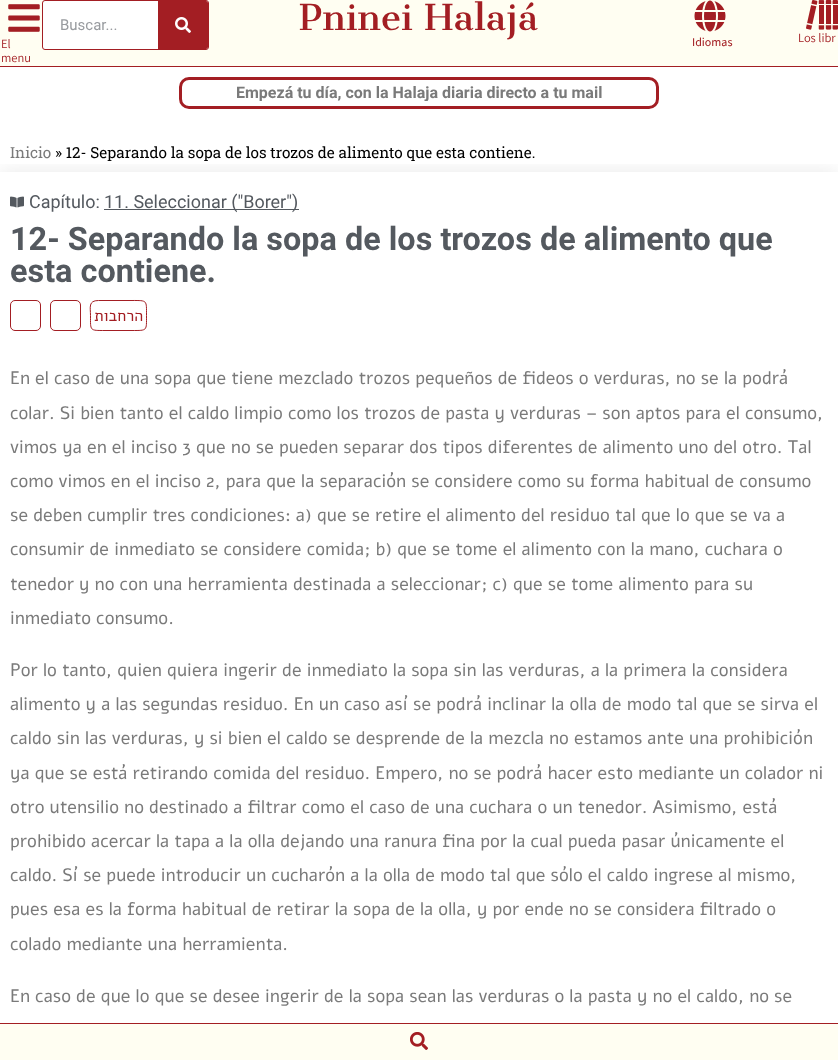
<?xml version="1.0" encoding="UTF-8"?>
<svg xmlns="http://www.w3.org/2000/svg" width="838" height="1060">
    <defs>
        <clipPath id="clip1"><rect x="187" y="85" width="464" height="16"/></clipPath>
        <clipPath id="clip2"><rect x="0" y="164" width="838" height="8"/></clipPath>
        <filter id="blur1" x="-50%" y="-200%" width="200%" height="500%"><feGaussianBlur stdDeviation="10"/></filter>
    </defs>
    <rect width="100%" height="100%" fill="#FFFFFF"/>
    <rect x="0" y="0" width="838" height="66" fill="#FFFEF2"/>
    <rect x="0" y="66" width="838" height="1" fill="#A31E23"/>
    <rect x="42.5" y="0.5" width="166" height="49" rx="2.5" fill="#FFFFFF" stroke="#A31E23"/>
    <text x="60" y="30" font-family="Roboto" font-size="15" fill="#989B9F">Buscar...</text>
    <path d="M 158 1 H 206 C 207 1 208 2 208 3 V 47 C 208 48 207 49 206 49 H 158 Z" fill="#A31E23"/>
    <image x="175" y="17" width="16" height="16" href="img_01.png"/>
    <text x="299" y="30" font-family="Cantata One" font-size="35" fill="#A31E23">Pninei Halajá</text>
    <image x="8" y="4" width="32" height="28" href="img_02.png"/>
    <text font-family="Assistant" font-size="12.5" fill="#A31E23">
        <tspan x="1" y="48">El</tspan>
        <tspan x="1" y="62">menu</tspan>
    </text>
    <image x="694" y="0" width="32" height="32" href="img_03.png"/>
    <text x="692" y="46" font-family="Assistant" font-size="12" font-weight="500" fill="#A31E23">Idiomas</text>
    <image x="806" y="0" width="32" height="30" href="img_04.png"/>
    <text x="798" y="42" font-family="Assistant" font-size="12.5" fill="#A31E23">Los libr</text>
    <rect x="180.5" y="78.5" width="477" height="29" rx="8.5" fill="none" stroke="#A31E23" stroke-width="3"/>
    <g clip-path="url(#clip1)">
        <text x="236" y="98" font-family="Roboto" font-size="16" font-weight="700" fill="#7A7A7A">Empezá tu día, con la Halaja diaria directo a tu mail</text>
    </g>
    <text x="10" y="158" font-family="Roboto Slab" font-size="15.3" fill="#7A7A7A">Inicio</text>
    <text x="55" y="158" font-family="Roboto Slab" font-size="15.3" fill="#000000">» 12- Separando la sopa de los trozos de alimento que esta contiene.</text>
    <g clip-path="url(#clip2)">
        <rect x="0" y="172" width="838" height="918" fill="#000000" fill-opacity="0.09" filter="url(#blur1)"/>
    </g>
    <image x="10" y="196" width="14" height="12" href="img_05.png"/>
    <text x="29" y="208" font-family="Roboto" font-size="18" fill="#54595F">Capítulo:</text>
    <rect x="104" y="209" width="195" height="1" fill="#54595F"/>
    <text x="104" y="208" font-family="Roboto" font-size="18" fill="#54595F">11. Seleccionar ("Borer")</text>
    <text font-family="Roboto" font-size="32.4" font-weight="700" fill="#54595F">
        <tspan x="10" y="250">12- Separando la sopa de los trozos de alimento que</tspan>
        <tspan x="10" y="282">esta contiene.</tspan>
    </text>
    <rect x="10.5" y="300.5" width="30" height="30" rx="4.5" fill="none" stroke="#A31E23"/>
    <rect x="50.5" y="300.5" width="30" height="30" rx="4.5" fill="none" stroke="#A31E23"/>
    <path d="M 98.5 300.5 H 132 C 147.5 300.5 146.5 300 146.5 315.5 C 146.5 331 147.5 330.5 132 330.5 H 105 C 89.5 330.5 90.5 331 90.5 315.5 C 90.5 307.5 88 300.5 98.5 300.5 Z" fill="none" stroke="#A31E23"/>
    <text x="143" y="321" font-family="Alef" font-size="16" direction="rtl" fill="#A31E23">הרחבות</text>
    <text font-family="Alef" font-size="18" fill="#7A7A7A">
        <tspan x="10" y="384">En el caso de una sopa que tiene mezclado trozos pequeños de fideos o verduras, no se la podrá</tspan>
        <tspan x="10" y="419">colar. Si bien tanto el caldo limpio como los trozos de pasta y verduras – son aptos para el consumo,</tspan>
        <tspan x="10" y="453">vimos ya en el inciso 3 que no se pueden separar dos tipos diferentes de alimento uno del otro. Tal</tspan>
        <tspan x="10" y="487">como vimos en el inciso 2, para que la separación se considere como su forma habitual de consumo</tspan>
        <tspan x="10" y="521">se deben cumplir tres condiciones: a) que se retire el alimento del residuo tal que lo que se va a</tspan>
        <tspan x="10" y="555">consumir de inmediato se considere comida; b) que se tome el alimento con la mano, cuchara o</tspan>
        <tspan x="10" y="590">tenedor y no con una herramienta destinada a seleccionar; c) que se tome alimento para su</tspan>
        <tspan x="10" y="624">inmediato consumo.</tspan>
    </text>
    <text font-family="Alef" font-size="18" fill="#7A7A7A">
        <tspan x="10" y="676">Por lo tanto, quien quiera ingerir de inmediato la sopa sin las verduras, a la primera la considera</tspan>
        <tspan x="10" y="710">alimento y a las segundas residuo. En un caso así se podrá inclinar la olla de modo tal que se sirva el</tspan>
        <tspan x="10" y="744">caldo sin las verduras, y si bien el caldo se desprende de la mezcla no estamos ante una prohibición</tspan>
        <tspan x="10" y="779">ya que se está retirando comida del residuo. Empero, no se podrá hacer esto mediante un colador ni</tspan>
        <tspan x="10" y="813">otro utensilio no destinado a filtrar como el caso de una cuchara o un tenedor. Asimismo, está</tspan>
        <tspan x="10" y="847">prohibido acercar la tapa a la olla dejando una ranura fina por la cual pueda pasar únicamente el</tspan>
        <tspan x="10" y="881">caldo. Sí se puede introducir un cucharón a la olla de modo tal que sólo el caldo ingrese al mismo,</tspan>
        <tspan x="10" y="915">pues esa es la forma habitual de retirar la sopa de la olla, y por ende no se considera filtrado o</tspan>
        <tspan x="10" y="950">colado mediante una herramienta.</tspan>
    </text>
    <text x="10" y="1002" font-family="Alef" font-size="18" fill="#7A7A7A">En caso de que lo que se desee ingerir de la sopa sean las verduras o la pasta y no el caldo, no se</text>
    <rect x="0" y="1024" width="838" height="36" fill="#FFFEF2"/>
    <rect x="0" y="1023" width="838" height="1" fill="#A31E23"/>
    <image x="410" y="1032" width="18" height="18" href="img_06.png"/>
</svg>
